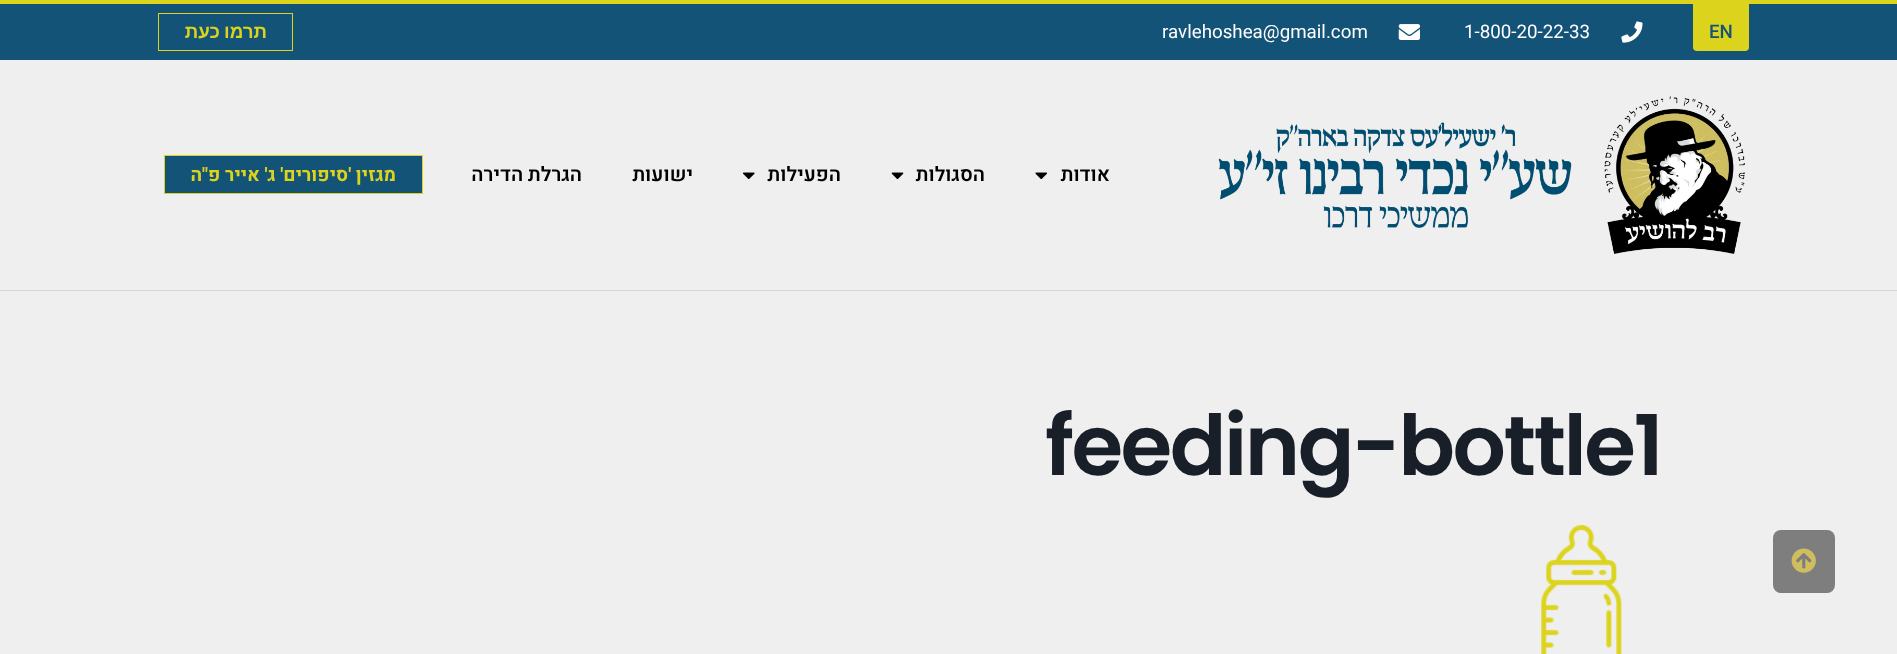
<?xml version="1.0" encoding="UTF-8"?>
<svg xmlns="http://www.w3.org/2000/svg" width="1897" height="654">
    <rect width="100%" height="100%" fill="#EFEFEF"/>
    <rect x="0" y="4" width="1897" height="56" fill="#135377"/>
    <rect x="0" y="0" width="1897" height="4" fill="#DCD31C"/>
    <rect x="1693" y="-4" width="56" height="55" rx="4" fill="#DCD31C"/>
    <text x="1709" y="38" font-family="Roboto" font-size="18.75" font-weight="500" fill="#135377">EN</text>
    <image x="1621" y="21" width="22" height="22" href="img_01.png"/>
    <text x="1464" y="38" font-family="Roboto" font-size="18.75" fill="#FFFFFF">1-800-20-22-33</text>
    <image x="1398" y="24" width="22" height="16" href="img_02.png"/>
    <text x="1162" y="38" font-family="Roboto" font-size="18.75" fill="#FFFFFF">ravlehoshea@gmail.com</text>
    <rect x="158.5" y="13.5" width="134" height="37" fill="none" stroke="#DCD31C"/>
    <text x="267" y="38" word-spacing="-1" font-family="Liberation Sans" font-size="18.75" font-weight="700" direction="rtl" fill="#DCD31C">תרמו כעת</text>
    <rect x="0" y="290" width="1897" height="1" fill="#D8D8D8"/>
    <image x="1218" y="96" width="527" height="158" href="img_03.png"/>
    <text x="1110" y="181" font-family="Heebo" font-size="20" font-weight="600" direction="rtl" fill="#000000">אודות</text>
    <image x="1035" y="172" width="12" height="8" href="img_04.png"/>
    <text x="985" y="181" font-family="Heebo" font-size="20" font-weight="600" direction="rtl" fill="#000000">הסגולות</text>
    <image x="891" y="172" width="13" height="8" href="img_05.png"/>
    <text x="841" y="181" font-family="Heebo" font-size="20" font-weight="600" direction="rtl" fill="#000000">הפעילות</text>
    <image x="743" y="172" width="12" height="8" href="img_06.png"/>
    <text x="693" y="181" font-family="Heebo" font-size="20" font-weight="600" direction="rtl" fill="#000000">ישועות</text>
    <text x="582" y="181" font-family="Heebo" font-size="20" font-weight="600" direction="rtl" fill="#000000">הגרלת הדירה</text>
    <rect x="164.5" y="155.5" width="258" height="38" fill="#135377" stroke="#DCD31C"/>
    <text x="396" y="181" font-family="Heebo" font-size="18.75" font-weight="700" direction="rtl" fill="#DCD31C">מגזין 'סיפורים' ג' אייר פ"ה</text>
    <text x="1045" y="475" font-family="Poppins" font-size="83.75" font-weight="600" letter-spacing="-2.5" fill="#191F28">feeding-bottle1</text>
    <image x="1541" y="525" width="81" height="129" href="img_07.png"/>
    <rect x="1773" y="530" width="62" height="63" rx="8" fill="#7E7E7E"/>
    <image x="1791" y="548" width="25" height="25" href="img_08.png"/>
</svg>
